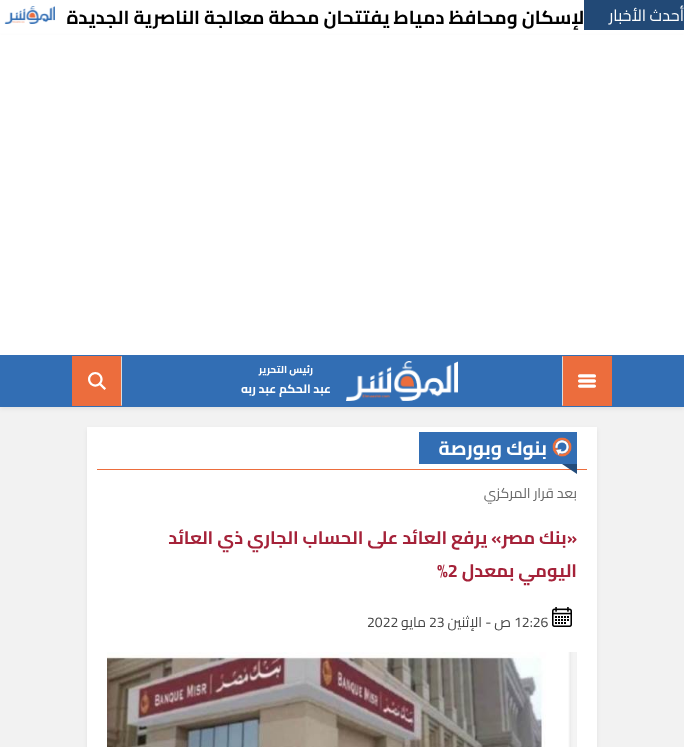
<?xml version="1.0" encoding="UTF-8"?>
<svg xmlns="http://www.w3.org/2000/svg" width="684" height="747">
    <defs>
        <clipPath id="clip1"><rect x="0" y="0" width="584" height="35"/></clipPath>
        <filter id="blur1" x="-50%" y="-200%" width="200%" height="500%"><feGaussianBlur stdDeviation="2"/></filter>
    </defs>
    <rect width="100%" height="100%" fill="#F2F2F2"/>
    <rect x="0" y="0" width="684" height="35" fill="#FFFFFF"/>
    <rect x="584" y="0" width="100" height="30" fill="#224976"/>
    <text x="684" y="21" font-family="Cairo" font-size="16" direction="rtl" fill="#FFFFFF">أحدث الأخبار</text>
    <g clip-path="url(#clip1)">
        <text x="626" y="24" font-family="Cairo" font-size="18.75" font-weight="700" direction="rtl" fill="#000000">وزير الإسكان ومحافظ دمياط يفتتحان محطة معالجة الناصرية الجديدة</text>
    </g>
    <image x="4" y="6" width="51" height="18" href="img_01.png"/>
    <rect x="0" y="37" width="684" height="372" fill="#000000" fill-opacity="0.07" filter="url(#blur1)"/>
    <rect x="0" y="35" width="684" height="320" fill="#FFFFFF"/>
    <rect x="0" y="355" width="684" height="52" fill="#326EB4"/>
    <rect x="562" y="356" width="50" height="50" fill="#EC6D3D"/>
    <path d="M 562 406 V 356 L 563 357 V 405 Z" fill="#DCDCDC"/>
    <image x="578" y="374" width="18" height="14" href="img_02.png"/>
    <image x="346" y="361" width="112" height="40" href="img_03.png"/>
    <text x="313" y="373" font-family="Cairo" font-size="10" font-weight="700" direction="rtl" fill="#FFFFFF">رئيس التحرير</text>
    <text x="331" y="393" font-family="Cairo" font-size="12" font-weight="700" direction="rtl" fill="#FFFFFF">عبد الحكم عبد ربه</text>
    <rect x="72" y="356" width="50" height="50" fill="#EC6D3D"/>
    <path d="M 122 356 V 406 L 121 405 V 357 Z" fill="#DCDCDC"/>
    <image x="88" y="372" width="18" height="18" href="img_04.png"/>
    <rect x="87" y="429" width="510" height="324" fill="#000000" fill-opacity="0.07" filter="url(#blur1)"/>
    <rect x="87" y="427" width="510" height="320" fill="#FFFFFF"/>
    <rect x="97" y="469" width="490" height="1" fill="#EC6D3D"/>
    <rect x="419" y="432" width="158" height="32" fill="#326EB4"/>
    <image x="552" y="437" width="20" height="20" href="img_05.png"/>
    <text x="547" y="455" font-family="Cairo" font-size="19.25" font-weight="700" direction="rtl" fill="#FFFFFF">بنوك وبورصة</text>
    <path d="M 562 464 H 577 V 474 Z" fill="#234C7B"/>
    <text x="577" y="498" font-family="Cairo" font-size="14" direction="rtl" fill="#666666">بعد قرار المركزي</text>
    <text font-family="Cairo" font-size="18" font-weight="700" direction="rtl" fill="#A52239">
        <tspan x="577" y="544">«بنك مصر» يرفع العائد على الحساب الجاري ذي العائد</tspan>
        <tspan x="577" y="577">اليومي بمعدل</tspan>
    </text>
    <text x="437" y="577" font-family="Cairo" font-size="18" font-weight="700" fill="#A52239">%2</text>
    <image x="552" y="607" width="20" height="20" href="img_06.png"/>
    <text x="514" y="627" font-family="Cairo" font-size="14" fill="#444444">12:26</text>
    <text x="511" y="627" font-family="Cairo" font-size="14" direction="rtl" fill="#444444">ص - الإثنين</text>
    <text x="429" y="627" font-family="Cairo" font-size="14" fill="#444444">23</text>
    <text x="426" y="627" font-family="Cairo" font-size="14" direction="rtl" fill="#444444">مايو</text>
    <text x="367" y="627" font-family="Cairo" font-size="14" fill="#444444">2022</text>
    <image x="107" y="652" width="470" height="95" href="img_07.png"/>
</svg>
